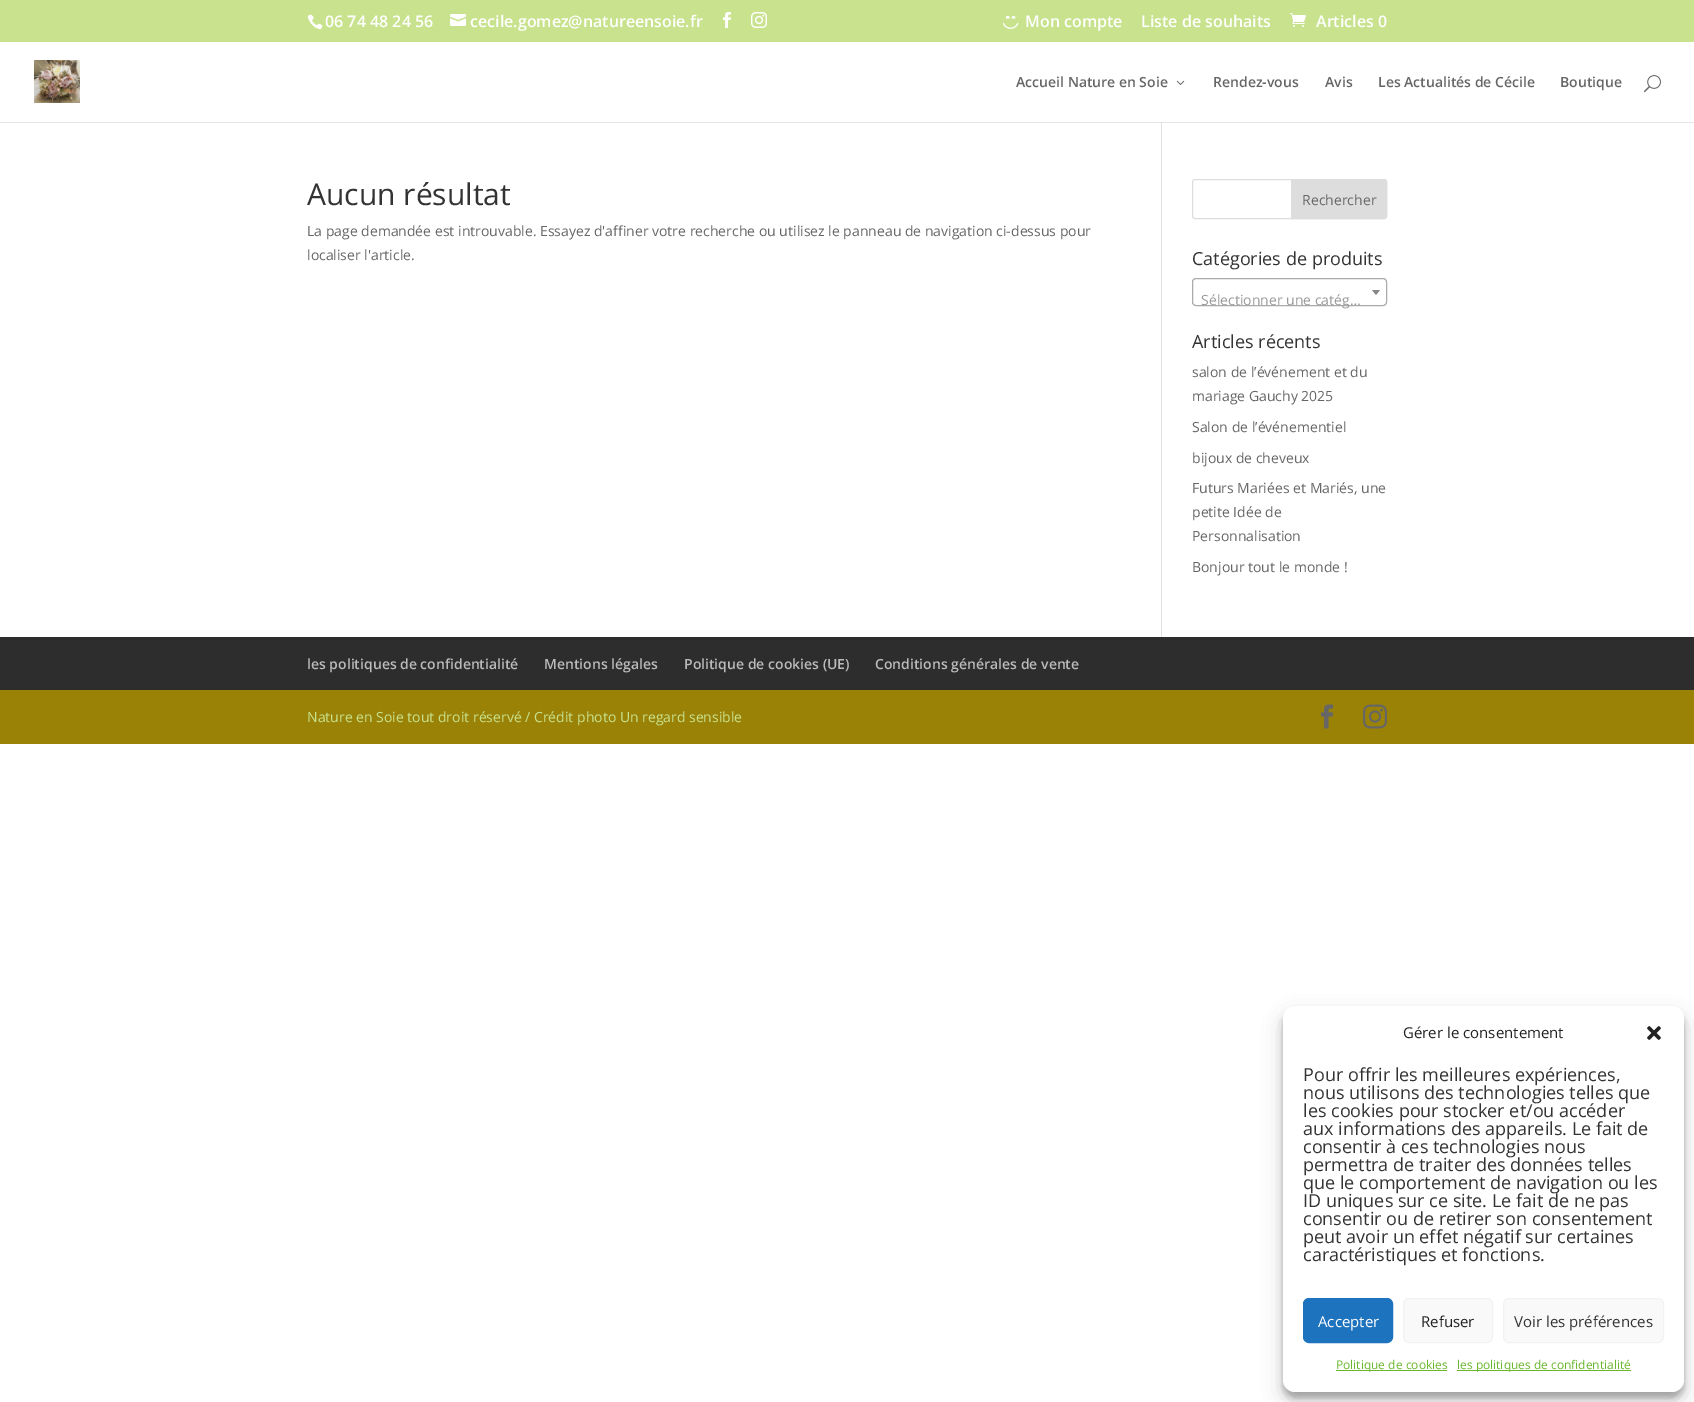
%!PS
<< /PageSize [1694 1402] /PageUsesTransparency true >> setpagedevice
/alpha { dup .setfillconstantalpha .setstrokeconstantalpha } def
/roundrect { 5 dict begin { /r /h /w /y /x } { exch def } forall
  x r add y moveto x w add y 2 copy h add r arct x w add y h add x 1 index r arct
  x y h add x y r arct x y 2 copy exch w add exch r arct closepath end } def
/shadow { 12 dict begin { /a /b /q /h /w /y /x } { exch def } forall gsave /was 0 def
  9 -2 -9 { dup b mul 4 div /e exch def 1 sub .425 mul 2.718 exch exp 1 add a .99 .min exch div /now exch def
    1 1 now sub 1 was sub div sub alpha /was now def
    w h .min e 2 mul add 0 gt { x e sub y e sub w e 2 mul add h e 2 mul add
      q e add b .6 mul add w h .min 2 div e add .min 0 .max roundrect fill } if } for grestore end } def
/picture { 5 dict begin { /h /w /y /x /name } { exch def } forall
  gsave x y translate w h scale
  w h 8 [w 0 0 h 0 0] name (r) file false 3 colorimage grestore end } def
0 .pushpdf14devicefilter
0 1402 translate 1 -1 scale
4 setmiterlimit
1 setgray
0 0 1694 1402 rectfill
0.902 setgray
0 122 1694 1 rectfill
0.784 0.886 0.557 setrgbcolor
0 0 1694 42 rectfill
(img1.rgb) 307 14 16 16 picture
/OpenSans-SemiBold [16 0 0 -16 0 0] selectfont
1 setgray
325 27 moveto (06 74 48 24 56) show
(img2.rgb) 450 14 16 12 picture
470 27 moveto (cecile.gomez@natureensoie.fr) show
(img3.rgb) 723 12 8 16 picture
(img4.rgb) 751 12 16 16 picture
(img5.rgb) 1002 15 17 14 picture
1025 27 moveto (Mon compte) show
1141 27 moveto (Liste de souhaits) show
(img6.rgb) 1290 13 16 14 picture
1316 27 moveto (Articles 0) show
0.886 setgray
1161 121 1 516 rectfill
1 setgray
1161 121 1 1 rectfill
(img7.rgb) 34 60 46 43 picture
/OpenSans-SemiBold [14 0 0 -14 0 0] selectfont
0.4 setgray
1016 87 moveto (Accueil Nature en Soie) show
(img8.rgb) 1176 80 9 5 picture
1213 87 moveto (Rendez-vous) show
1325 87 moveto (Avis) show
1378 87 moveto (Les Actualités de Cécile) show
1560 87 moveto (Boutique) show
(img9.rgb) 1644 75 17 18 picture
0.796 setgray
1161 122 1 1 rectfill
/OpenSans-Regular [30 0 0 -30 0 0] selectfont
0.2 setgray
307 205 moveto (Aucun résultat) show
/OpenSans-Regular [14 0 0 -14 0 0] selectfont
0.4 setgray
307 236 moveto (La page demandée est introuvable. Essayez d'affiner votre recherche ou utilisez le panneau de navigation ci-dessus pour) show
307 260 moveto (localiser l'article.) show
0.867 setgray
1192.5 179.5 194 39 2.5 roundrect stroke
newpath 1291.5 179.5 moveto 1384 179.5 lineto 1385.5 179.5 1386.5 180.5 1386.5 182 curveto 1386.5 216 lineto 1386.5 217.5 1385.5 218.5 1384 218.5 curveto 1291.5 218.5 lineto closepath gsave fill grestore
stroke
0.4 setgray
1302 205 moveto (Rechercher) show
/OpenSans-Regular [18 0 0 -18 0 0] selectfont
0.2 setgray
1192 265 moveto (Catégories de produits) show
0.667 setgray
1192.5 278.5 194 27 3.5 roundrect stroke
0.533 setgray
newpath 1372 290 moveto 1380 290 lineto 1376 295 lineto closepath fill
/OpenSans-Regular [14 0 0 -14 0 0] selectfont
0.6 setgray
1201 305 moveto (Sélectionner une catég…) show
/OpenSans-Regular [18 0 0 -18 0 0] selectfont
0.2 setgray
1192 348 moveto (Articles récents) show
/OpenSans-Regular [14 0 0 -14 0 0] selectfont
0.4 setgray
1192 377 moveto (salon de l’événement et du) show
1192 401 moveto (mariage Gauchy 2025) show
1192 432 moveto (Salon de l’événementiel) show
1192 463 moveto (bijoux de cheveux) show
1192 493 moveto (Futurs Mariées et Mariés, une) show
1192 517 moveto (petite Idée de) show
1192 541 moveto (Personnalisation) show
1192 572 moveto (Bonjour tout le monde !) show
0.176 setgray
0 637 1694 53 rectfill
/OpenSans-SemiBold [14 0 0 -14 0 0] selectfont
0.733 setgray
307 669 moveto (les politiques de confidentialité) show
544 669 moveto (Mentions légales) show
684 669 moveto (Politique de cookies \(UE\)) show
875 669 moveto (Conditions générales de vente) show
0.604 0.51 0.027 setrgbcolor
0 690 1694 54 rectfill
/OpenSans-Regular [14 0 0 -14 0 0] selectfont
0.784 0.886 0.557 setrgbcolor
307 722 moveto (Nature en Soie tout droit réservé / Crédit photo Un regard sensible) show
(img10.rgb) 1321 704 12 25 picture
(img11.rgb) 1363 704 24 25 picture
0 setgray
1283 1012 401 386 12 3 0.23 shadow
1283 1016 401 386 12 10 0.19 shadow
1 setgray
1283 1006 401 386 12 roundrect fill
/OpenSans-Regular [15 0 0 -15 0 0] selectfont
0.133 setgray
1403 1038 moveto (Gérer le consentement) show
(img12.rgb) 1647 1026 14 14 picture
/OpenSans-Regular [18 0 0 -18 0 0] selectfont
0.2 setgray
1303 1081 moveto (Pour offrir les meilleures expériences,) show
1303 1099 moveto (nous utilisons des technologies telles que) show
1303 1117 moveto (les cookies pour stocker et/ou accéder) show
1303 1135 moveto (aux informations des appareils. Le fait de) show
1303 1153 moveto (consentir à ces technologies nous) show
1303 1171 moveto (permettra de traiter des données telles) show
1303 1189 moveto (que le comportement de navigation ou les) show
1303 1207 moveto (ID uniques sur ce site. Le fait de ne pas) show
1303 1225 moveto (consentir ou de retirer son consentement) show
1303 1243 moveto (peut avoir un effet négatif sur certaines) show
1303 1261 moveto (caractéristiques et fonctions.) show
0.118 0.451 0.745 setrgbcolor
1303.5 1298.5 89 44 5.5 roundrect gsave fill grestore
stroke
/OpenSans-Regular [15 0 0 -15 0 0] selectfont
1 setgray
1318 1327 moveto (Accepter) show
0.976 setgray
1403.5 1298.5 89 44 5.5 roundrect gsave fill grestore
0.949 setgray
stroke
0.133 setgray
1421 1327 moveto (Refuser) show
0.976 setgray
1503.5 1298.5 160 44 5.5 roundrect gsave fill grestore
0.949 setgray
stroke
0.2 setgray
1514 1327 moveto (Voir les préférences) show
0.412 0.718 0.173 setrgbcolor
1336 1370 111 1 rectfill
/OpenSans-Regular [12 0 0 -12 0 0] selectfont
1336 1369 moveto (Politique de cookies) show
1457 1370 174 1 rectfill
1457 1369 moveto (les politiques de confidentialité) show
.poppdf14devicefilter showpage
